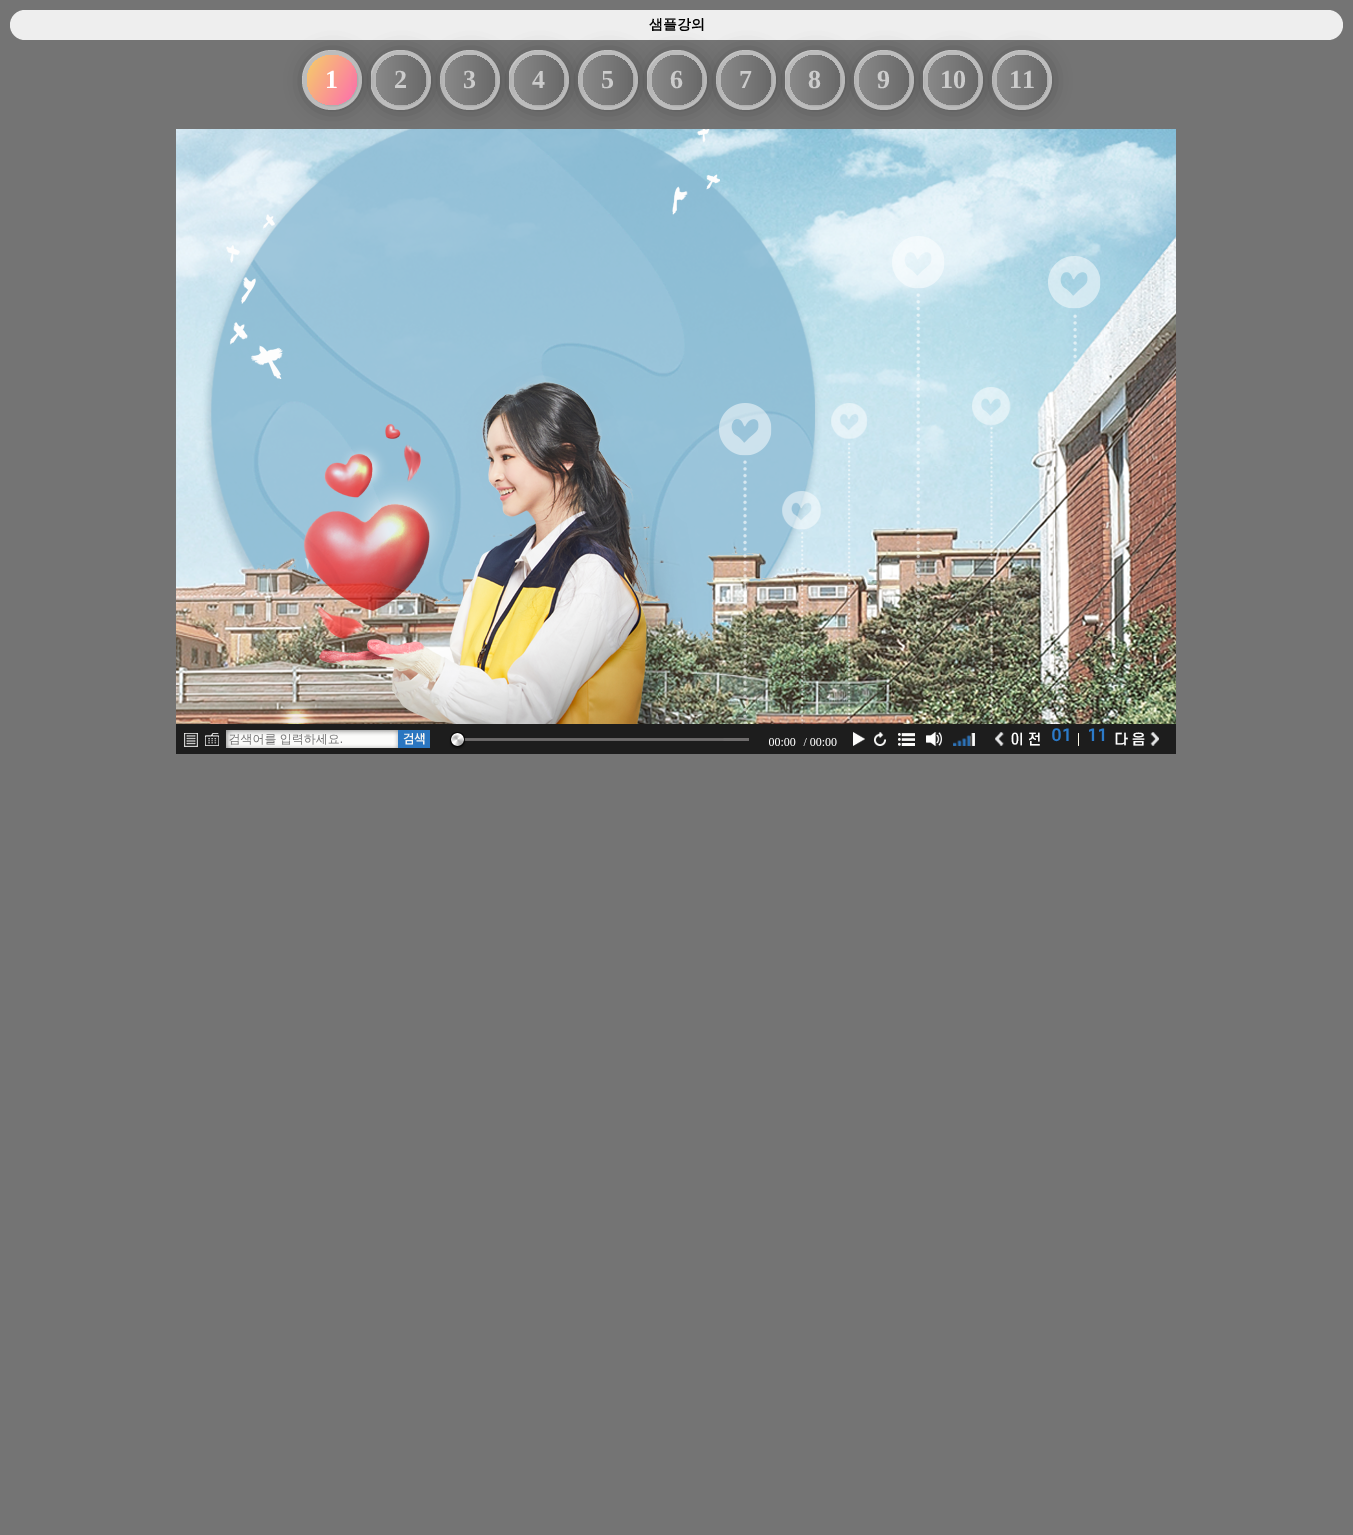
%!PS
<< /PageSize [1353 1535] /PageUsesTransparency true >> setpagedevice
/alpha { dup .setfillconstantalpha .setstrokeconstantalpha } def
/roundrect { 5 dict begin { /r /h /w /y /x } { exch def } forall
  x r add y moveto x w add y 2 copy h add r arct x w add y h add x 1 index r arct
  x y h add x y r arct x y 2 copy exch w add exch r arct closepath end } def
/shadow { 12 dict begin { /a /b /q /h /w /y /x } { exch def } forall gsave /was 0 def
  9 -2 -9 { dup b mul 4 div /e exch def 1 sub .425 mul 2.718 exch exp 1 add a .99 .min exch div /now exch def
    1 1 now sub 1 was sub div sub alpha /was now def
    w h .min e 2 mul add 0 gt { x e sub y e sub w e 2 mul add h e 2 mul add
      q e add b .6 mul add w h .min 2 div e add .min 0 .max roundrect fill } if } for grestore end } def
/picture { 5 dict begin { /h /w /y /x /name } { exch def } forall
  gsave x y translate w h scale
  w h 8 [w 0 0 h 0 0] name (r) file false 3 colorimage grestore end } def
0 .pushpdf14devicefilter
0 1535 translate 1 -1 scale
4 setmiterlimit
0.455 setgray
0 0 1353 1535 rectfill
0.933 setgray
10 10 1333 30 15 roundrect fill
/WenQuanYiZenHei-Bold [14 0 0 -14 0 0] selectfont
0 setgray
649 29 moveto (샘플강의) show
gsave
302 50 30 60 rectclip
0.867 setgray
newpath 332 110 moveto 315 110 302 97 302 80 curveto 302 63 315 50 332 50 curveto 348 50 362 63 362 80 curveto 362 97 348 110 332 110 curveto closepath fill
grestore
0.867 setgray
newpath 332 50 moveto 348.5 50 362 63.5 362 80 curveto 362 96.5 348.5 110 332 110 curveto closepath fill
gsave
371 50 30 60 rectclip
newpath 400 110 moveto 384 110 370 97 370 80 curveto 370 63 384 50 400 50 curveto 417 50 430 63 430 80 curveto 430 97 417 110 400 110 curveto closepath fill
grestore
(img1.rgb) 176 129 1000 625 picture
0 setgray
305 53 56 56 28 10 0.3 shadow
gsave newpath 332 80 25 0 360 arc closepath clip newpath
<< /ShadingType 2 /ColorSpace /DeviceRGB /Coords [302 63 362 97] /Extend [true true] /Function << /FunctionType 2 /Domain [0 1] /C0 [0.961 0.816 0.408] /C1 [0.996 0.42 0.686] /N 1 >> >> shfill grestore
/LiberationSerif-Bold [26 0 0 -26 0 0] selectfont
1 setgray
325 88 moveto (1) show
0.867 setgray
newpath 401 50 moveto 417.5 50 431 63.5 431 80 curveto 431 96.5 417.5 110 401 110 curveto closepath fill
gsave
440 50 30 60 rectclip
newpath 470 110 moveto 453 110 440 97 440 80 curveto 440 63 453 50 470 50 curveto 486 50 500 63 500 80 curveto 500 97 486 110 470 110 curveto closepath fill
grestore
0 setgray
374 53 56 56 28 10 0.3 shadow
gsave newpath 401 80 25 0 360 arc closepath clip newpath
<< /ShadingType 2 /ColorSpace /DeviceRGB /Coords [376 80 426 80] /Extend [true true] /Function << /FunctionType 2 /Domain [0 1] /C0 [0.537 0.537 0.537] /C1 [0.412 0.412 0.412] /N 1 >> >> shfill grestore
0.8 setgray
394 88 moveto (2) show
0.867 setgray
newpath 470 50 moveto 486.5 50 500 63.5 500 80 curveto 500 96.5 486.5 110 470 110 curveto closepath fill
gsave
509 50 30 60 rectclip
newpath 538 110 moveto 522 110 508 97 508 80 curveto 508 63 522 50 538 50 curveto 555 50 568 63 568 80 curveto 568 97 555 110 538 110 curveto closepath fill
grestore
0 setgray
443 53 56 56 28 10 0.3 shadow
gsave newpath 470 80 25 0 360 arc closepath clip newpath
<< /ShadingType 2 /ColorSpace /DeviceRGB /Coords [445 80 495 80] /Extend [true true] /Function << /FunctionType 2 /Domain [0 1] /C0 [0.537 0.537 0.537] /C1 [0.412 0.412 0.412] /N 1 >> >> shfill grestore
0.8 setgray
463 88 moveto (3) show
0.867 setgray
newpath 539 50 moveto 555.5 50 569 63.5 569 80 curveto 569 96.5 555.5 110 539 110 curveto closepath fill
gsave
578 50 30 60 rectclip
newpath 608 110 moveto 591 110 578 97 578 80 curveto 578 63 591 50 608 50 curveto 624 50 638 63 638 80 curveto 638 97 624 110 608 110 curveto closepath fill
grestore
0 setgray
512 53 56 56 28 10 0.3 shadow
gsave newpath 539 80 25 0 360 arc closepath clip newpath
<< /ShadingType 2 /ColorSpace /DeviceRGB /Coords [514 80 564 80] /Extend [true true] /Function << /FunctionType 2 /Domain [0 1] /C0 [0.537 0.537 0.537] /C1 [0.412 0.412 0.412] /N 1 >> >> shfill grestore
0.8 setgray
532 88 moveto (4) show
0.867 setgray
newpath 608 50 moveto 624.5 50 638 63.5 638 80 curveto 638 96.5 624.5 110 608 110 curveto closepath fill
gsave
647 50 30 60 rectclip
newpath 676 110 moveto 660 110 646 97 646 80 curveto 646 63 660 50 676 50 curveto 693 50 706 63 706 80 curveto 706 97 693 110 676 110 curveto closepath fill
grestore
0 setgray
581 53 56 56 28 10 0.3 shadow
gsave newpath 608 80 25 0 360 arc closepath clip newpath
<< /ShadingType 2 /ColorSpace /DeviceRGB /Coords [583 80 633 80] /Extend [true true] /Function << /FunctionType 2 /Domain [0 1] /C0 [0.537 0.537 0.537] /C1 [0.412 0.412 0.412] /N 1 >> >> shfill grestore
0.8 setgray
601 88 moveto (5) show
0.867 setgray
newpath 677 50 moveto 693.5 50 707 63.5 707 80 curveto 707 96.5 693.5 110 677 110 curveto closepath fill
gsave
716 50 30 60 rectclip
newpath 746 110 moveto 729 110 716 97 716 80 curveto 716 63 729 50 746 50 curveto 762 50 776 63 776 80 curveto 776 97 762 110 746 110 curveto closepath fill
grestore
0 setgray
650 53 56 56 28 10 0.3 shadow
gsave newpath 677 80 25 0 360 arc closepath clip newpath
<< /ShadingType 2 /ColorSpace /DeviceRGB /Coords [652 80 702 80] /Extend [true true] /Function << /FunctionType 2 /Domain [0 1] /C0 [0.537 0.537 0.537] /C1 [0.412 0.412 0.412] /N 1 >> >> shfill grestore
0.8 setgray
670 88 moveto (6) show
0.867 setgray
newpath 746 50 moveto 762.5 50 776 63.5 776 80 curveto 776 96.5 762.5 110 746 110 curveto closepath fill
gsave
785 50 30 60 rectclip
newpath 814 110 moveto 798 110 784 97 784 80 curveto 784 63 798 50 814 50 curveto 831 50 844 63 844 80 curveto 844 97 831 110 814 110 curveto closepath fill
grestore
0 setgray
719 53 56 56 28 10 0.3 shadow
gsave newpath 746 80 25 0 360 arc closepath clip newpath
<< /ShadingType 2 /ColorSpace /DeviceRGB /Coords [721 80 771 80] /Extend [true true] /Function << /FunctionType 2 /Domain [0 1] /C0 [0.537 0.537 0.537] /C1 [0.412 0.412 0.412] /N 1 >> >> shfill grestore
0.8 setgray
739 88 moveto (7) show
0.867 setgray
newpath 815 50 moveto 831.5 50 845 63.5 845 80 curveto 845 96.5 831.5 110 815 110 curveto closepath fill
gsave
854 50 30 60 rectclip
newpath 884 110 moveto 867 110 854 97 854 80 curveto 854 63 867 50 884 50 curveto 900 50 914 63 914 80 curveto 914 97 900 110 884 110 curveto closepath fill
grestore
0 setgray
788 53 56 56 28 10 0.3 shadow
gsave newpath 815 80 25 0 360 arc closepath clip newpath
<< /ShadingType 2 /ColorSpace /DeviceRGB /Coords [790 80 840 80] /Extend [true true] /Function << /FunctionType 2 /Domain [0 1] /C0 [0.537 0.537 0.537] /C1 [0.412 0.412 0.412] /N 1 >> >> shfill grestore
0.8 setgray
808 88 moveto (8) show
0.867 setgray
newpath 884 50 moveto 900.5 50 914 63.5 914 80 curveto 914 96.5 900.5 110 884 110 curveto closepath fill
gsave
923 50 30 60 rectclip
newpath 952 110 moveto 936 110 922 97 922 80 curveto 922 63 936 50 952 50 curveto 969 50 982 63 982 80 curveto 982 97 969 110 952 110 curveto closepath fill
grestore
0 setgray
857 53 56 56 28 10 0.3 shadow
gsave newpath 884 80 25 0 360 arc closepath clip newpath
<< /ShadingType 2 /ColorSpace /DeviceRGB /Coords [859 80 909 80] /Extend [true true] /Function << /FunctionType 2 /Domain [0 1] /C0 [0.537 0.537 0.537] /C1 [0.412 0.412 0.412] /N 1 >> >> shfill grestore
0.8 setgray
877 88 moveto (9) show
0.867 setgray
newpath 953 50 moveto 969.5 50 983 63.5 983 80 curveto 983 96.5 969.5 110 953 110 curveto closepath fill
gsave
992 50 30 60 rectclip
newpath 1022 110 moveto 1005 110 992 97 992 80 curveto 992 63 1005 50 1022 50 curveto 1038 50 1052 63 1052 80 curveto 1052 97 1038 110 1022 110 curveto closepath fill
grestore
0 setgray
926 53 56 56 28 10 0.3 shadow
gsave newpath 953 80 25 0 360 arc closepath clip newpath
<< /ShadingType 2 /ColorSpace /DeviceRGB /Coords [928 80 978 80] /Extend [true true] /Function << /FunctionType 2 /Domain [0 1] /C0 [0.537 0.537 0.537] /C1 [0.412 0.412 0.412] /N 1 >> >> shfill grestore
0.8 setgray
940 88 moveto (10) show
0.867 setgray
newpath 1022 50 moveto 1038.5 50 1052 63.5 1052 80 curveto 1052 96.5 1038.5 110 1022 110 curveto closepath fill
0 setgray
995 53 56 56 28 10 0.3 shadow
gsave newpath 1022 80 25 0 360 arc closepath clip newpath
<< /ShadingType 2 /ColorSpace /DeviceRGB /Coords [997 80 1047 80] /Extend [true true] /Function << /FunctionType 2 /Domain [0 1] /C0 [0.537 0.537 0.537] /C1 [0.412 0.412 0.412] /N 1 >> >> shfill grestore
0.8 setgray
1009 88 moveto (11) show
.poppdf14devicefilter showpage
